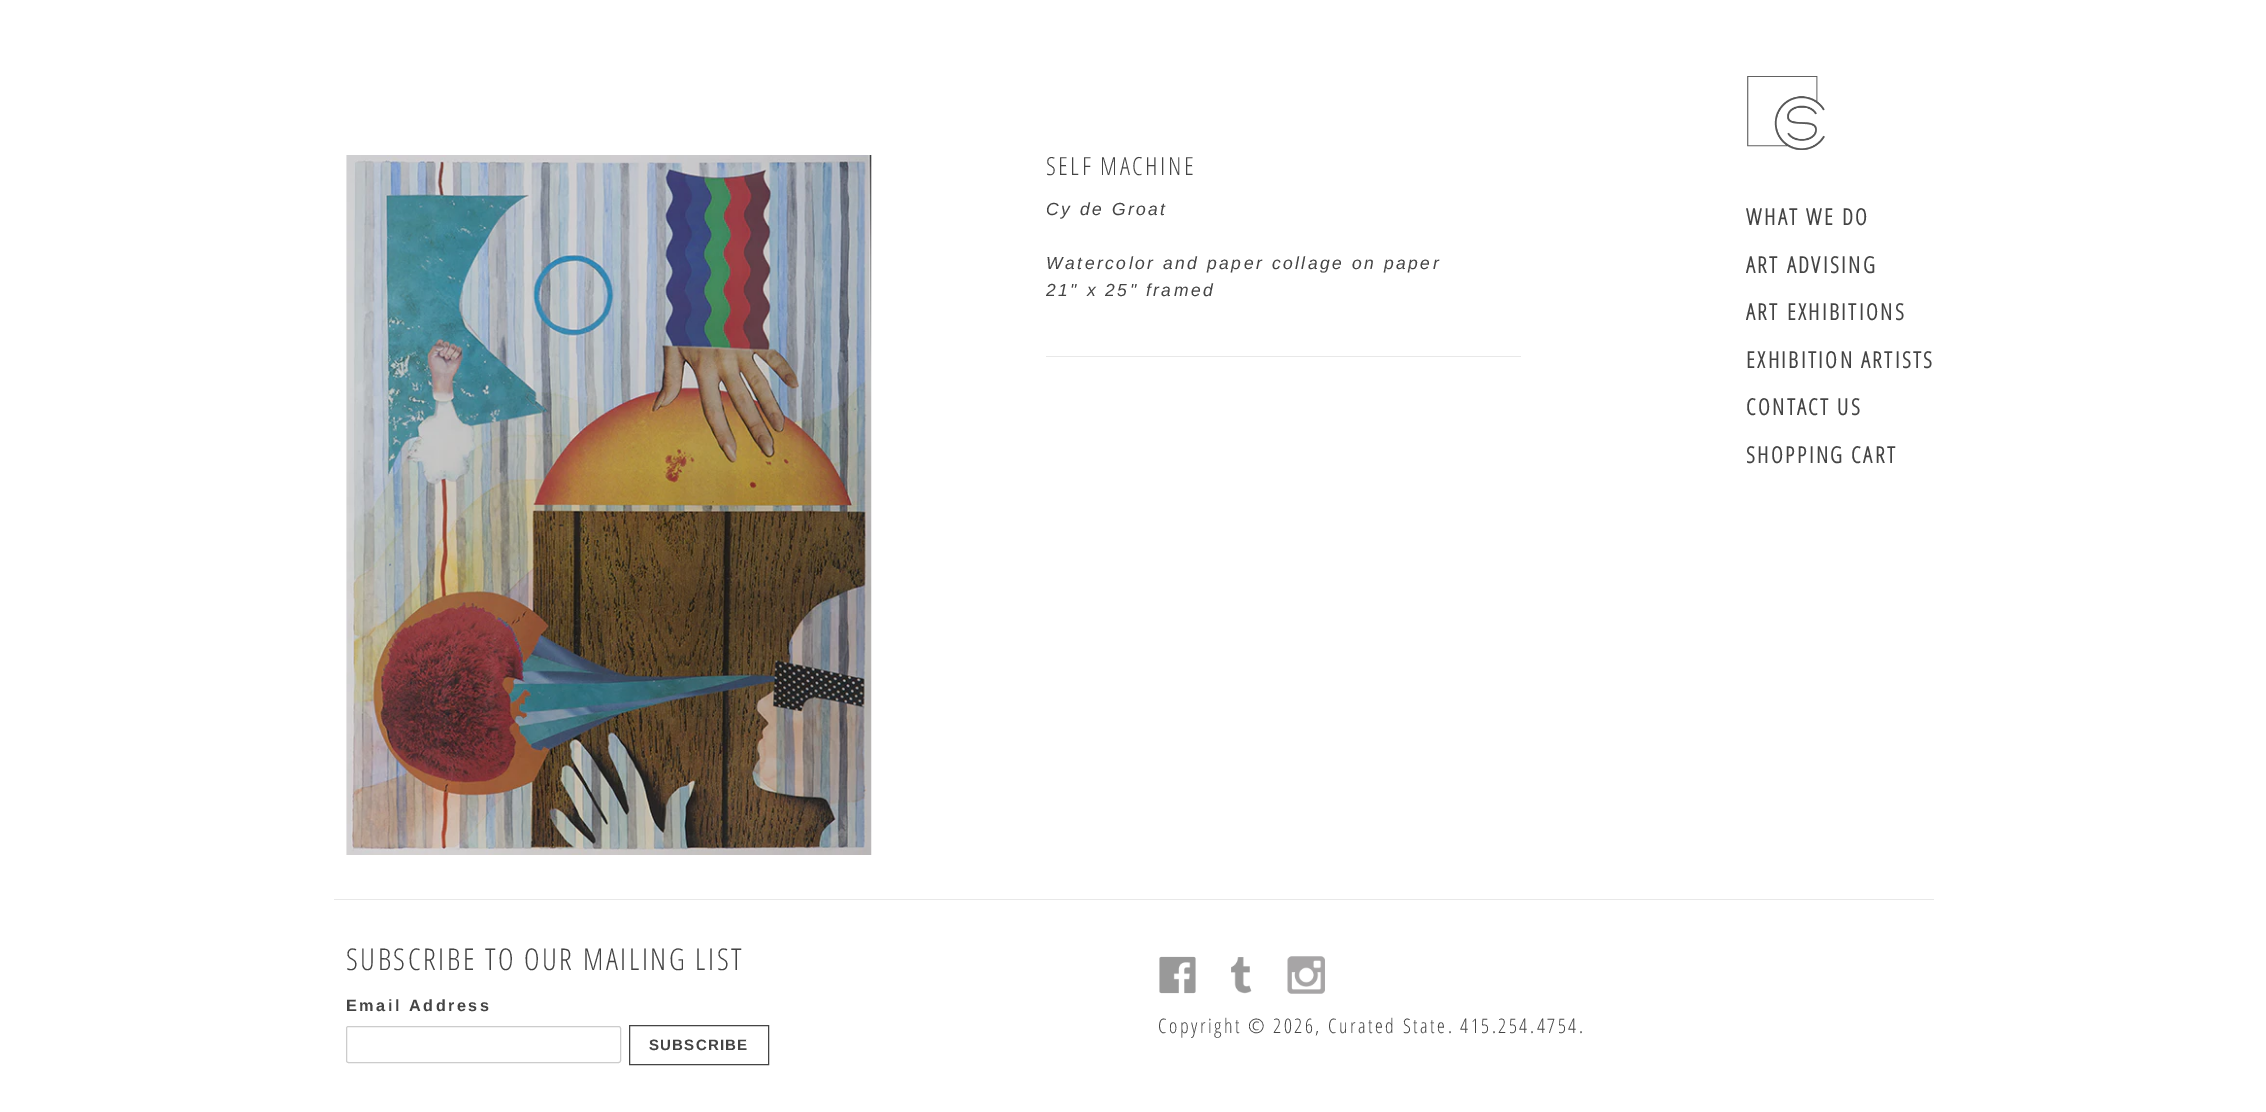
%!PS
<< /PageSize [2266 1112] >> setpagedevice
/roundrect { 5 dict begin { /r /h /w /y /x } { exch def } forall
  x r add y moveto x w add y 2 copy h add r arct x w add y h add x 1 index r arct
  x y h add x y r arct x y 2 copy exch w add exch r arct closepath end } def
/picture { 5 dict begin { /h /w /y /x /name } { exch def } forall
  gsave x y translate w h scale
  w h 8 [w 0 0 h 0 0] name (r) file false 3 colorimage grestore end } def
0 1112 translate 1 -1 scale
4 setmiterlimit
1 setgray
0 0 2266 1112 rectfill
(img1.rgb) 1747 76 78 74 picture
(img2.rgb) 346 155 526 700 picture
/OpenSansCondensed-Light [25 0 0 -25 0 0] selectfont
0.267 setgray
1046 175 moveto 2.5 0 (SELF MACHINE) ashow
/LiberationSans-Italic [17.5 0 0 -17.5 0 0] selectfont
1046 215 moveto 2.5 0 (Cy de Groat) ashow
1046 269 moveto 2.5 0 (Watercolor and paper collage on paper) ashow
1046 296 moveto 2.5 0 (21" x 25" framed) ashow
0.91 setgray
1046 356 475 1 rectfill
/OpenSansCondensed-Bold [22.5 0 0 -22.5 0 0] selectfont
0.267 setgray
1746 225 moveto 2.5 0 (WHAT WE DO) ashow
1746 273 moveto 2.5 0 (ART ADVISING) ashow
1746 320 moveto 2.5 0 (ART EXHIBITIONS) ashow
1746 368 moveto 2.5 0 (EXHIBITION ARTISTS) ashow
1746 415 moveto 2.5 0 (CONTACT US) ashow
1746 463 moveto 2.5 0 (SHOPPING CART) ashow
0.91 setgray
334 899 1600 1 rectfill
/OpenSansCondensed-Light [30 0 0 -30 0 0] selectfont
0.267 setgray
346 970 moveto 2.5 0 (SUBSCRIBE TO OUR MAILING LIST) ashow
/LiberationSans-Bold [16.25 0 0 -16.25 0 0] selectfont
346 1011 moveto 2.5 0 (Email Address) ashow
0.8 setgray
346.5 1026.5 274 36 2 roundrect stroke
0.267 setgray
629.5 1025.5 139 39 rectstroke
/LiberationSans-Bold [15 0 0 -15 0 0] selectfont
649 1050 moveto 1.25 0 (SUBSCRIBE) ashow
(img3.rgb) 1159 956 37 38 picture
(img4.rgb) 1231 957 21 37 picture
(img5.rgb) 1287 956 38 38 picture
/OpenSansCondensed-Light [20 0 0 -20 0 0] selectfont
1158 1033 moveto 2.5 0 (Copyright © 2026, Curated State. 415.254.4754.) ashow
showpage
